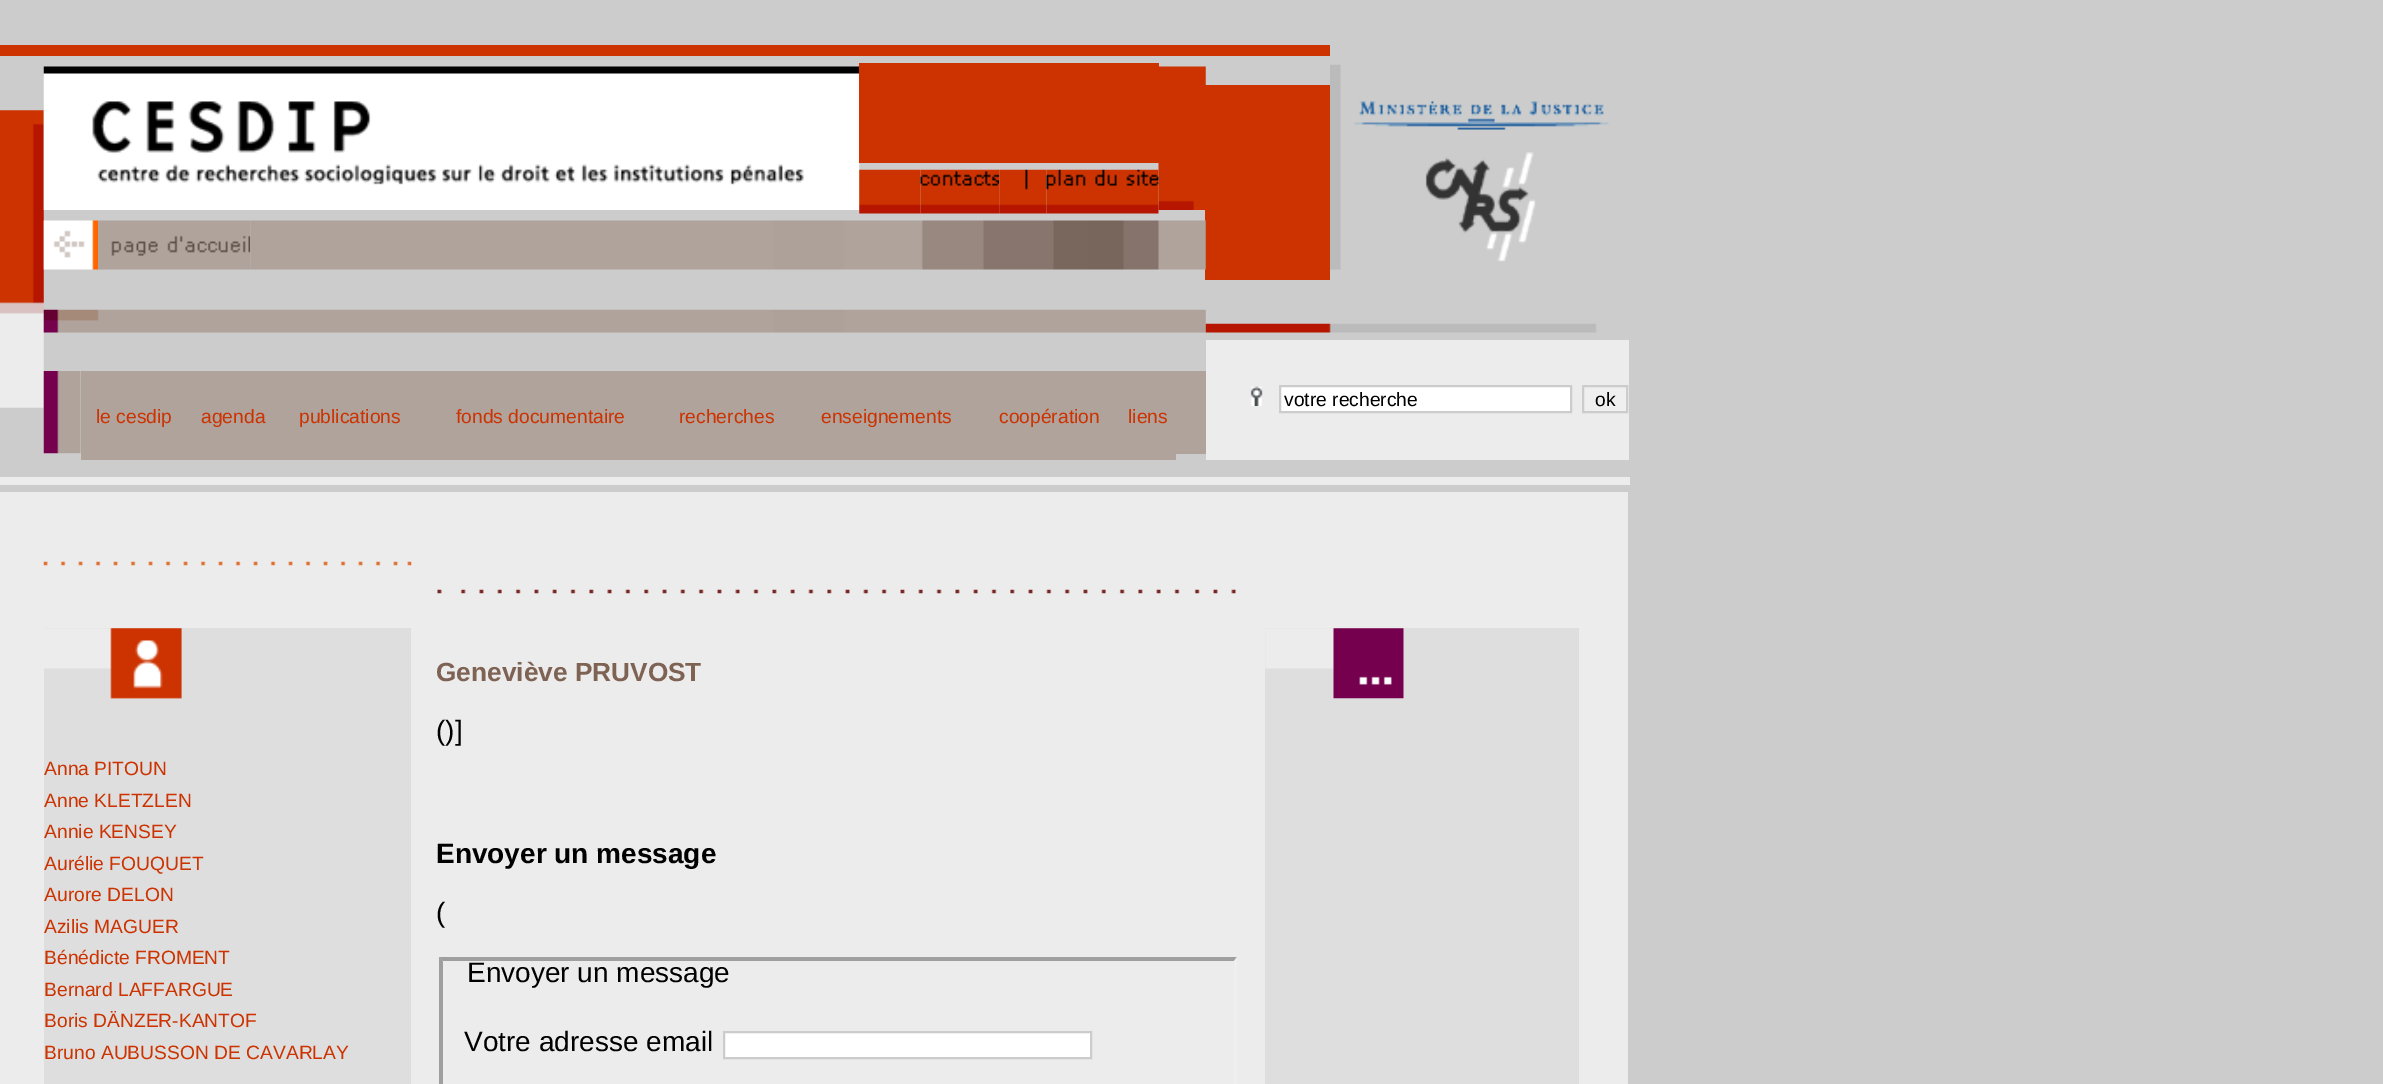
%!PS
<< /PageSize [2383 1084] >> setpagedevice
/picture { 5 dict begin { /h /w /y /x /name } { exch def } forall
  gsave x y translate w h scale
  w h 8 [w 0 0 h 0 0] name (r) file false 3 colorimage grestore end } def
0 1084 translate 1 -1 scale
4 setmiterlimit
0.8 setgray
0 0 2383 1084 rectfill
0.8 0.2 0 setrgbcolor
0 45 1330 11 rectfill
(img1.rgb) 1330 64 279 206 picture
(img2.rgb) 0 110 44 298 picture
(img3.rgb) 43 66 817 144 picture
859 63 300 100 rectfill
(img4.rgb) 1158 66 48 144 picture
1205 85 125 195 rectfill
(img5.rgb) 859 169 62 45 picture
(img6.rgb) 920 169 80 45 picture
(img7.rgb) 999 169 48 45 picture
(img8.rgb) 1046 169 113 45 picture
(img9.rgb) 43 220 55 50 picture
(img10.rgb) 98 220 153 50 picture
(img11.rgb) 250 220 956 50 picture
(img12.rgb) 43 309 1163 24 picture
(img13.rgb) 1205 323 392 10 picture
0.925 setgray
1206 340 423 120 rectfill
(img14.rgb) 1250 386 13 20 picture
1 setgray
newpath 1280 386 moveto 1571 386 lineto 1571 412 lineto 1280 412 lineto closepath gsave fill grestore
0.8 setgray
2 setlinewidth
stroke
/LiberationSans-Regular [19.25 0 0 -19.25 0 0] selectfont
0 setgray
1284 406 moveto (votre recherche) show
0.937 setgray
newpath 1583 386 moveto 1627 386 lineto 1627 412 lineto 1583 412 lineto closepath gsave fill grestore
0.8 setgray
stroke
0 setgray
1595 406 moveto (ok) show
(img15.rgb) 43 371 38 83 picture
0.69 0.639 0.612 setrgbcolor
81 371 1095 89 rectfill
0.8 0.2 0 setrgbcolor
96 423 moveto (le cesdip) show
201 423 moveto (agenda) show
299 423 moveto (publications) show
456 423 moveto (fonds documentaire) show
679 423 moveto (recherches) show
821 423 moveto (enseignements) show
999 423 moveto (coopération) show
1128 423 moveto (liens) show
0.69 0.639 0.612 setrgbcolor
1176 371 30 83 rectfill
0.925 setgray
0 477 1630 8 rectfill
0 492 1628 592 rectfill
(img16.rgb) 43 561 369 5 picture
(img17.rgb) 437 589 799 5 picture
0.871 setgray
44 628 367 456 rectfill
(img18.rgb) 44 628 138 71 picture
0.8 0.2 0 setrgbcolor
44 775 moveto (Anna PITOUN) show
44 807 moveto (Anne KLETZLEN) show
44 838 moveto (Annie KENSEY) show
44 870 moveto (Aurélie FOUQUET) show
44 901 moveto (Aurore DELON) show
44 933 moveto (Azilis MAGUER) show
44 964 moveto (Bénédicte FROMENT) show
44 996 moveto (Bernard LAFFARGUE) show
44 1027 moveto (Boris DÄNZER-KANTOF) show
44 1059 moveto (Bruno AUBUSSON DE CAVARLAY) show
/LiberationSans-Bold [26.25 0 0 -26.25 0 0] selectfont
0.494 0.388 0.329 setrgbcolor
436 681 moveto (Geneviève PRUVOST) show
/LiberationSans-Regular [28 0 0 -28 0 0] selectfont
0 setgray
436 740 moveto (\(\)]) show
/LiberationSans-Bold [28 0 0 -28 0 0] selectfont
436 863 moveto (Envoyer un message) show
/LiberationSans-Regular [28 0 0 -28 0 0] selectfont
436 922 moveto (\() show
0.624 setgray
newpath 439 957 moveto 1237 957 lineto 1234 961 lineto 443 961 lineto closepath fill
0.937 setgray
newpath 1237 957 moveto 1237 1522 lineto 1234 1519 lineto 1234 961 lineto closepath fill
0.624 setgray
newpath 439 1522 moveto 439 957 lineto 443 961 lineto 443 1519 lineto closepath fill
0 setgray
467 982 moveto (Envoyer un message) show
464 1051 moveto (Votre adresse email) show
1 setgray
newpath 724 1032 moveto 1091 1032 lineto 1091 1058 lineto 724 1058 lineto closepath gsave fill grestore
0.8 setgray
stroke
0.871 setgray
1265 628 314 456 rectfill
(img19.rgb) 1265 628 139 71 picture
showpage
